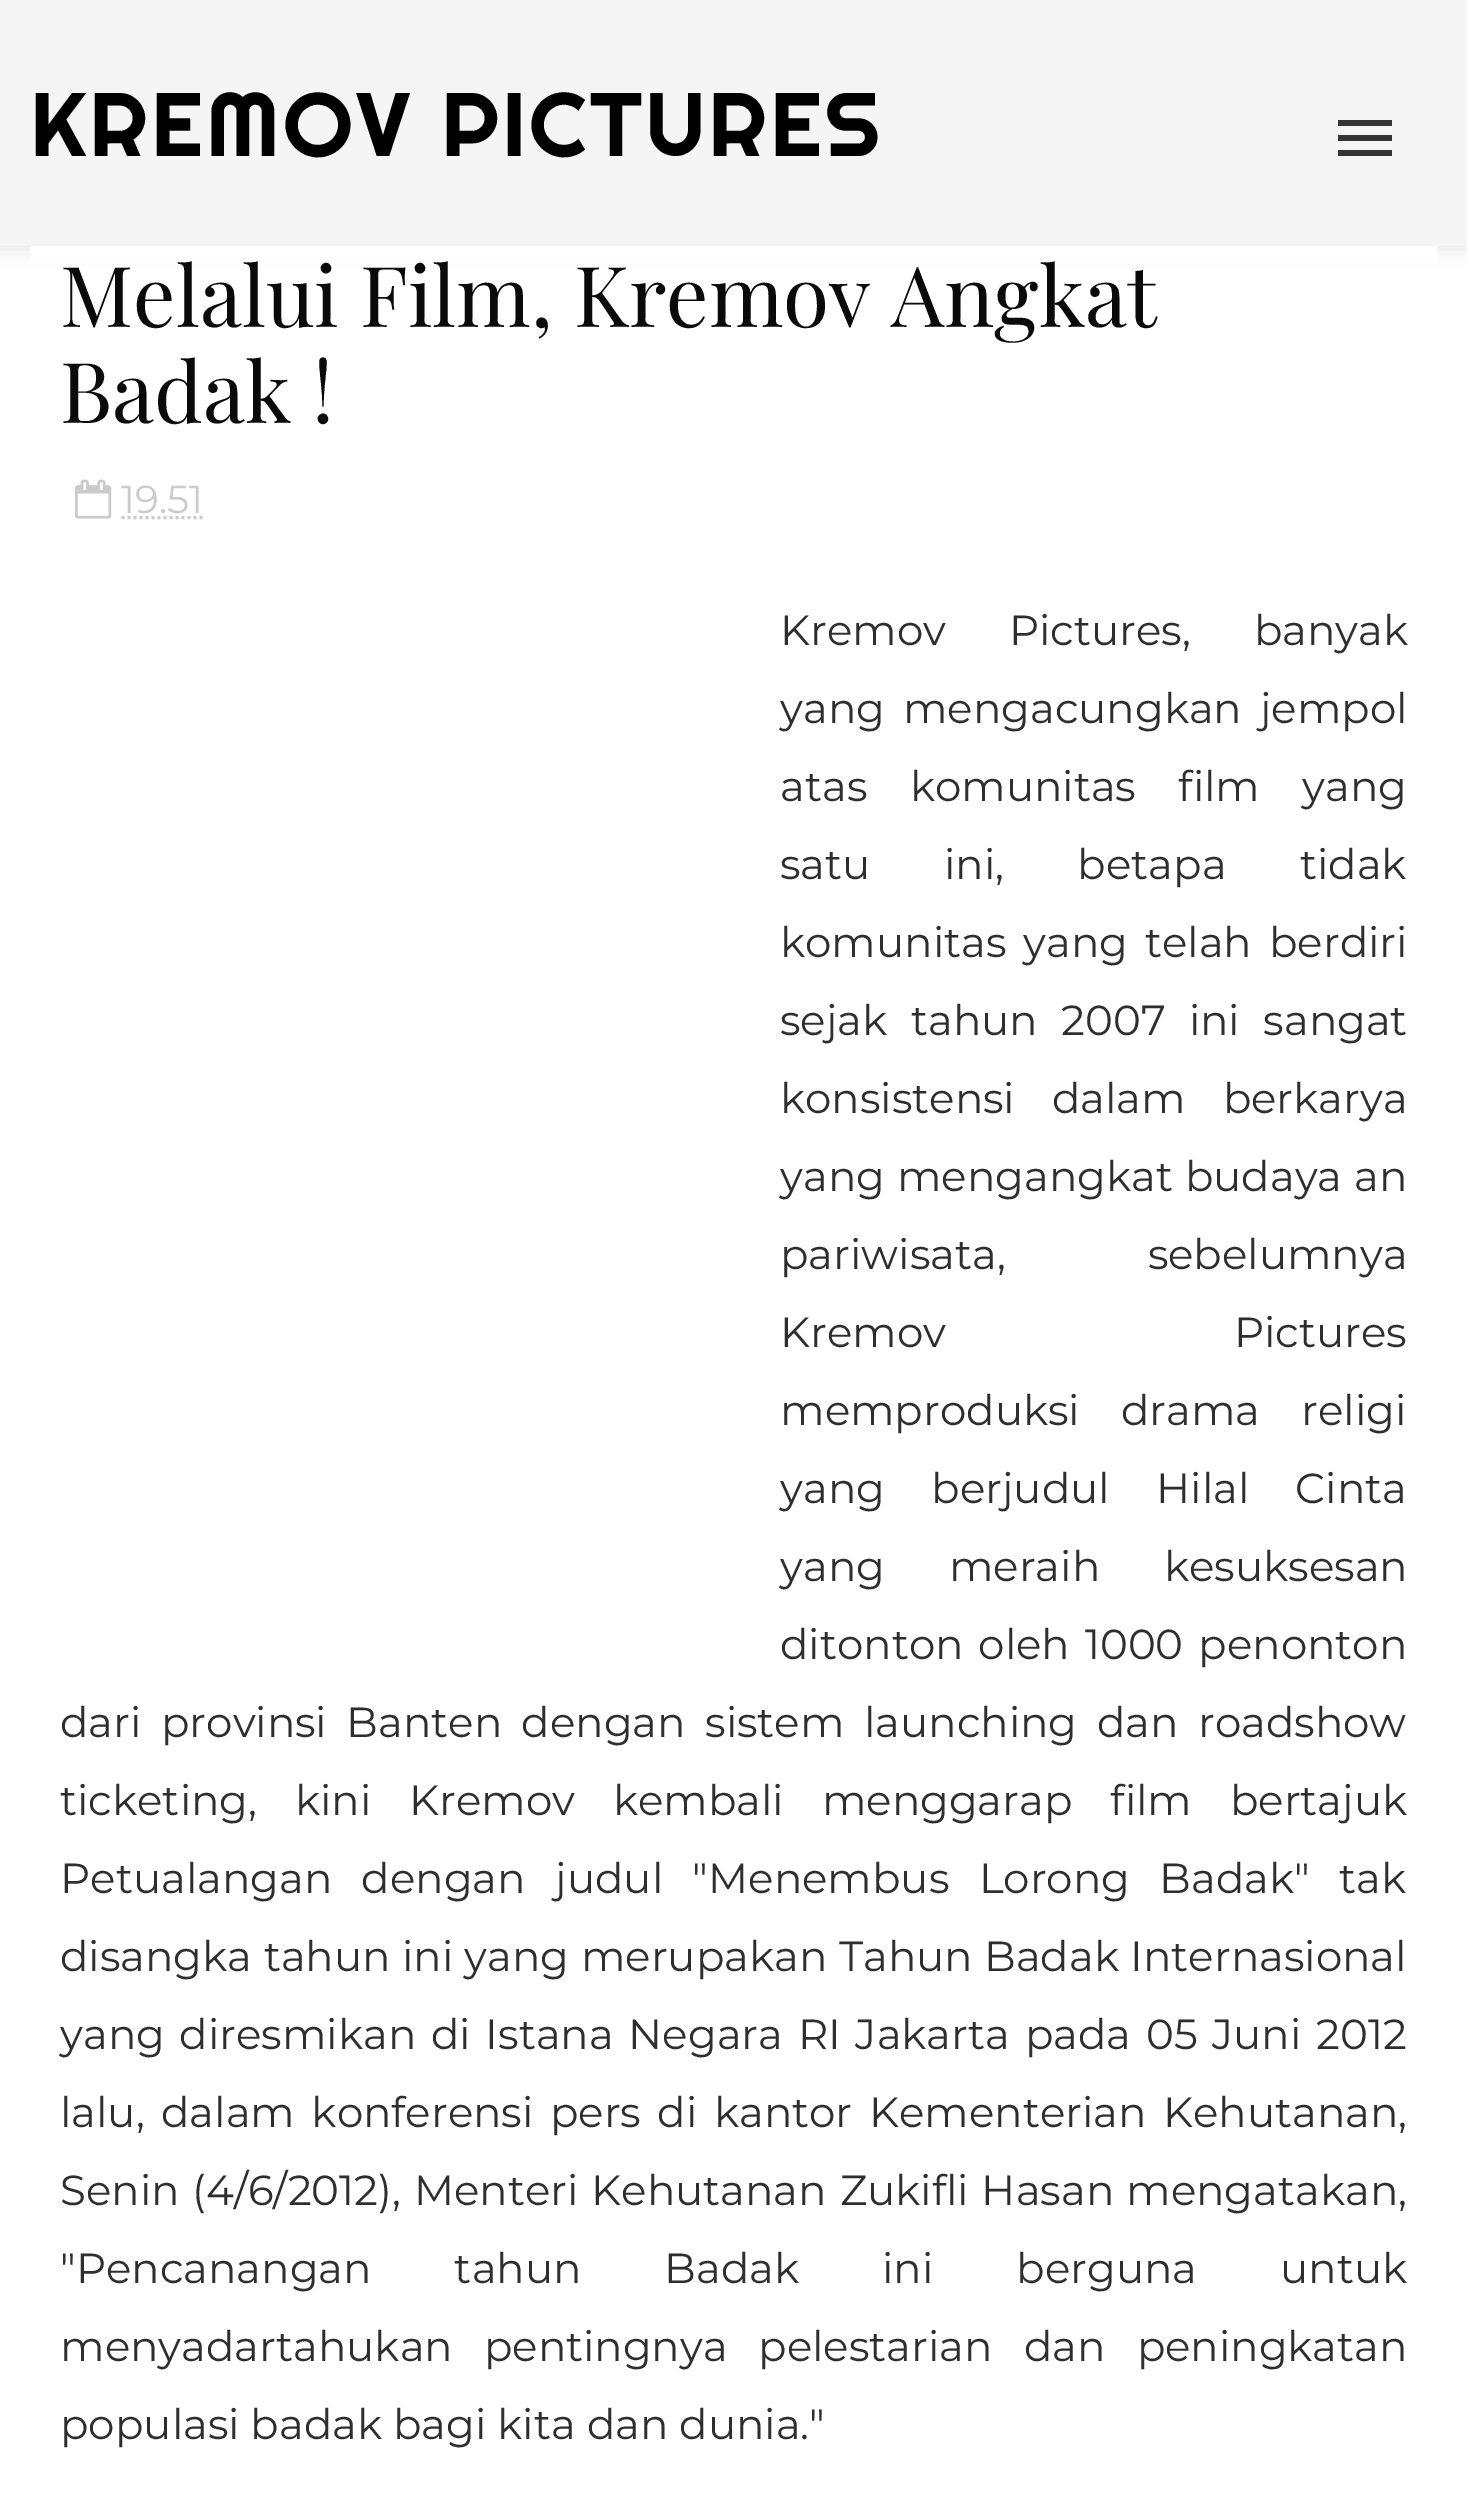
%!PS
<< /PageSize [1467 2495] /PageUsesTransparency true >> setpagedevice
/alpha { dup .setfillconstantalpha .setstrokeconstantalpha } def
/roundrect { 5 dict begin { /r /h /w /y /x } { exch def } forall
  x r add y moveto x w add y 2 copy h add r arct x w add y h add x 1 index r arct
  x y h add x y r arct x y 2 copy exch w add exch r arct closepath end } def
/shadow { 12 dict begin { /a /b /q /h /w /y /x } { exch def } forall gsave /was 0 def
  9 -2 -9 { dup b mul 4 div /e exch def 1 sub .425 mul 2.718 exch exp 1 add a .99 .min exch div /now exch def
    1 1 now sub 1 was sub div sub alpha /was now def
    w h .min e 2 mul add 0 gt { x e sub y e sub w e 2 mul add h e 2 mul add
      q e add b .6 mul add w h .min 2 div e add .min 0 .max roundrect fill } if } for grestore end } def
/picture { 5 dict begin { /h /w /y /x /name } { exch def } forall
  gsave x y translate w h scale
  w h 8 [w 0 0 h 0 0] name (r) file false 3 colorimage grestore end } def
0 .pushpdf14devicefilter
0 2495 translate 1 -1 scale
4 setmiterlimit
1 setgray
0 0 1467 2495 rectfill
0 setgray
-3 -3 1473 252 0 9 0.1 shadow
0.961 setgray
0 0 1467 246 rectfill
/Righteous-Regular [90 0 0 -90 0 0] selectfont
0 setgray
30 156 moveto 3 0 (KREMOV PICTURES) ashow
0.204 setgray
1338 120 54 6 rectfill
1338 135 54 6 rectfill
1338 150 54 6 rectfill
1 setgray
30 246 1407 15 rectfill
/PlayfairDisplay-Regular [84 0 0 -84 0 0] selectfont
0.039 setgray
60 327 moveto (Melalui Film, Kremov Angkat) show
60 423 moveto (Badak !) show
(img1.rgb) 75 479 37 40 picture
/Montserrat-Regular [39 0 0 -39 0 0] selectfont
0.796 setgray
121 513 moveto (19.51) show
3 setlinewidth
[3 3] 0 setdash
newpath 121.5 517.5 moveto 203.5 517.5 lineto stroke
/Montserrat-Regular [42 0 0 -42 0 0] selectfont
0.18 setgray
780 645 moveto 52 0 32 (Kremov Pictures, banyak) widthshow
780 723 moveto 7 0 32 (yang mengacungkan jempol) widthshow
780 801 moveto 31.5 0 32 (atas komunitas film yang) widthshow
780 879 moveto 62.5 0 32 (satu ini, betapa tidak) widthshow
780 957 moveto 6 0 32 (komunitas yang telah berdiri) widthshow
780 1035 moveto 12.5 0 32 (sejak tahun 2007 ini sangat) widthshow
780 1113 moveto 26 0 32 (konsistensi dalam berkarya) widthshow
780 1191 moveto 1 0 32 (yang mengangkat budaya an) widthshow
780 1269 moveto 131 0 32 (pariwisata, sebelumnya) widthshow
780 1347 moveto 277 0 32 (Kremov Pictures) widthshow
780 1425 moveto 30 0 32 (memproduksi drama religi) widthshow
780 1503 moveto 35.5 0 32 (yang berjudul Hilal Cinta) widthshow
780 1581 moveto 53 0 32 (yang meraih kesuksesan) widthshow
780 1659 moveto 4 0 32 (ditonton oleh 1000 penonton) widthshow
60 1737 moveto 8.5 0 32 (dari provinsi Banten dengan sistem launching dan roadshow) widthshow
60 1815 moveto 27 0 32 (ticketing, kini Kremov kembali menggarap film bertajuk) widthshow
60 1893 moveto 18.5 0 32 (Petualangan dengan judul "Menembus Lorong Badak" tak) widthshow
60 1971 moveto 0.5 0 32 (disangka tahun ini yang merupakan Tahun Badak Internasional) widthshow
60 2049 moveto 3.75 0 32 (yang diresmikan di Istana Negara RI Jakarta pada 05 Juni 2012) widthshow
60 2127 moveto 5.5 0 32 (lalu, dalam konferensi pers di kantor) widthshow
869 2127 moveto 6 0 32 (Kementerian Kehutanan,) widthshow
60 2205 moveto 2 0 32 (Senin \(4/6/2012\), Menteri Kehutanan Zukifli Hasan) widthshow
1126 2205 moveto (mengatakan,) show
60 2283 moveto 72 0 32 ("Pencanangan tahun Badak ini berguna untuk) widthshow
60 2361 moveto 20 0 32 (menyadartahukan pentingnya pelestarian) widthshow
1024 2361 moveto 20 0 32 (dan peningkatan) widthshow
60 2439 moveto (populasi badak bagi kita dan dunia.") show
.poppdf14devicefilter showpage
